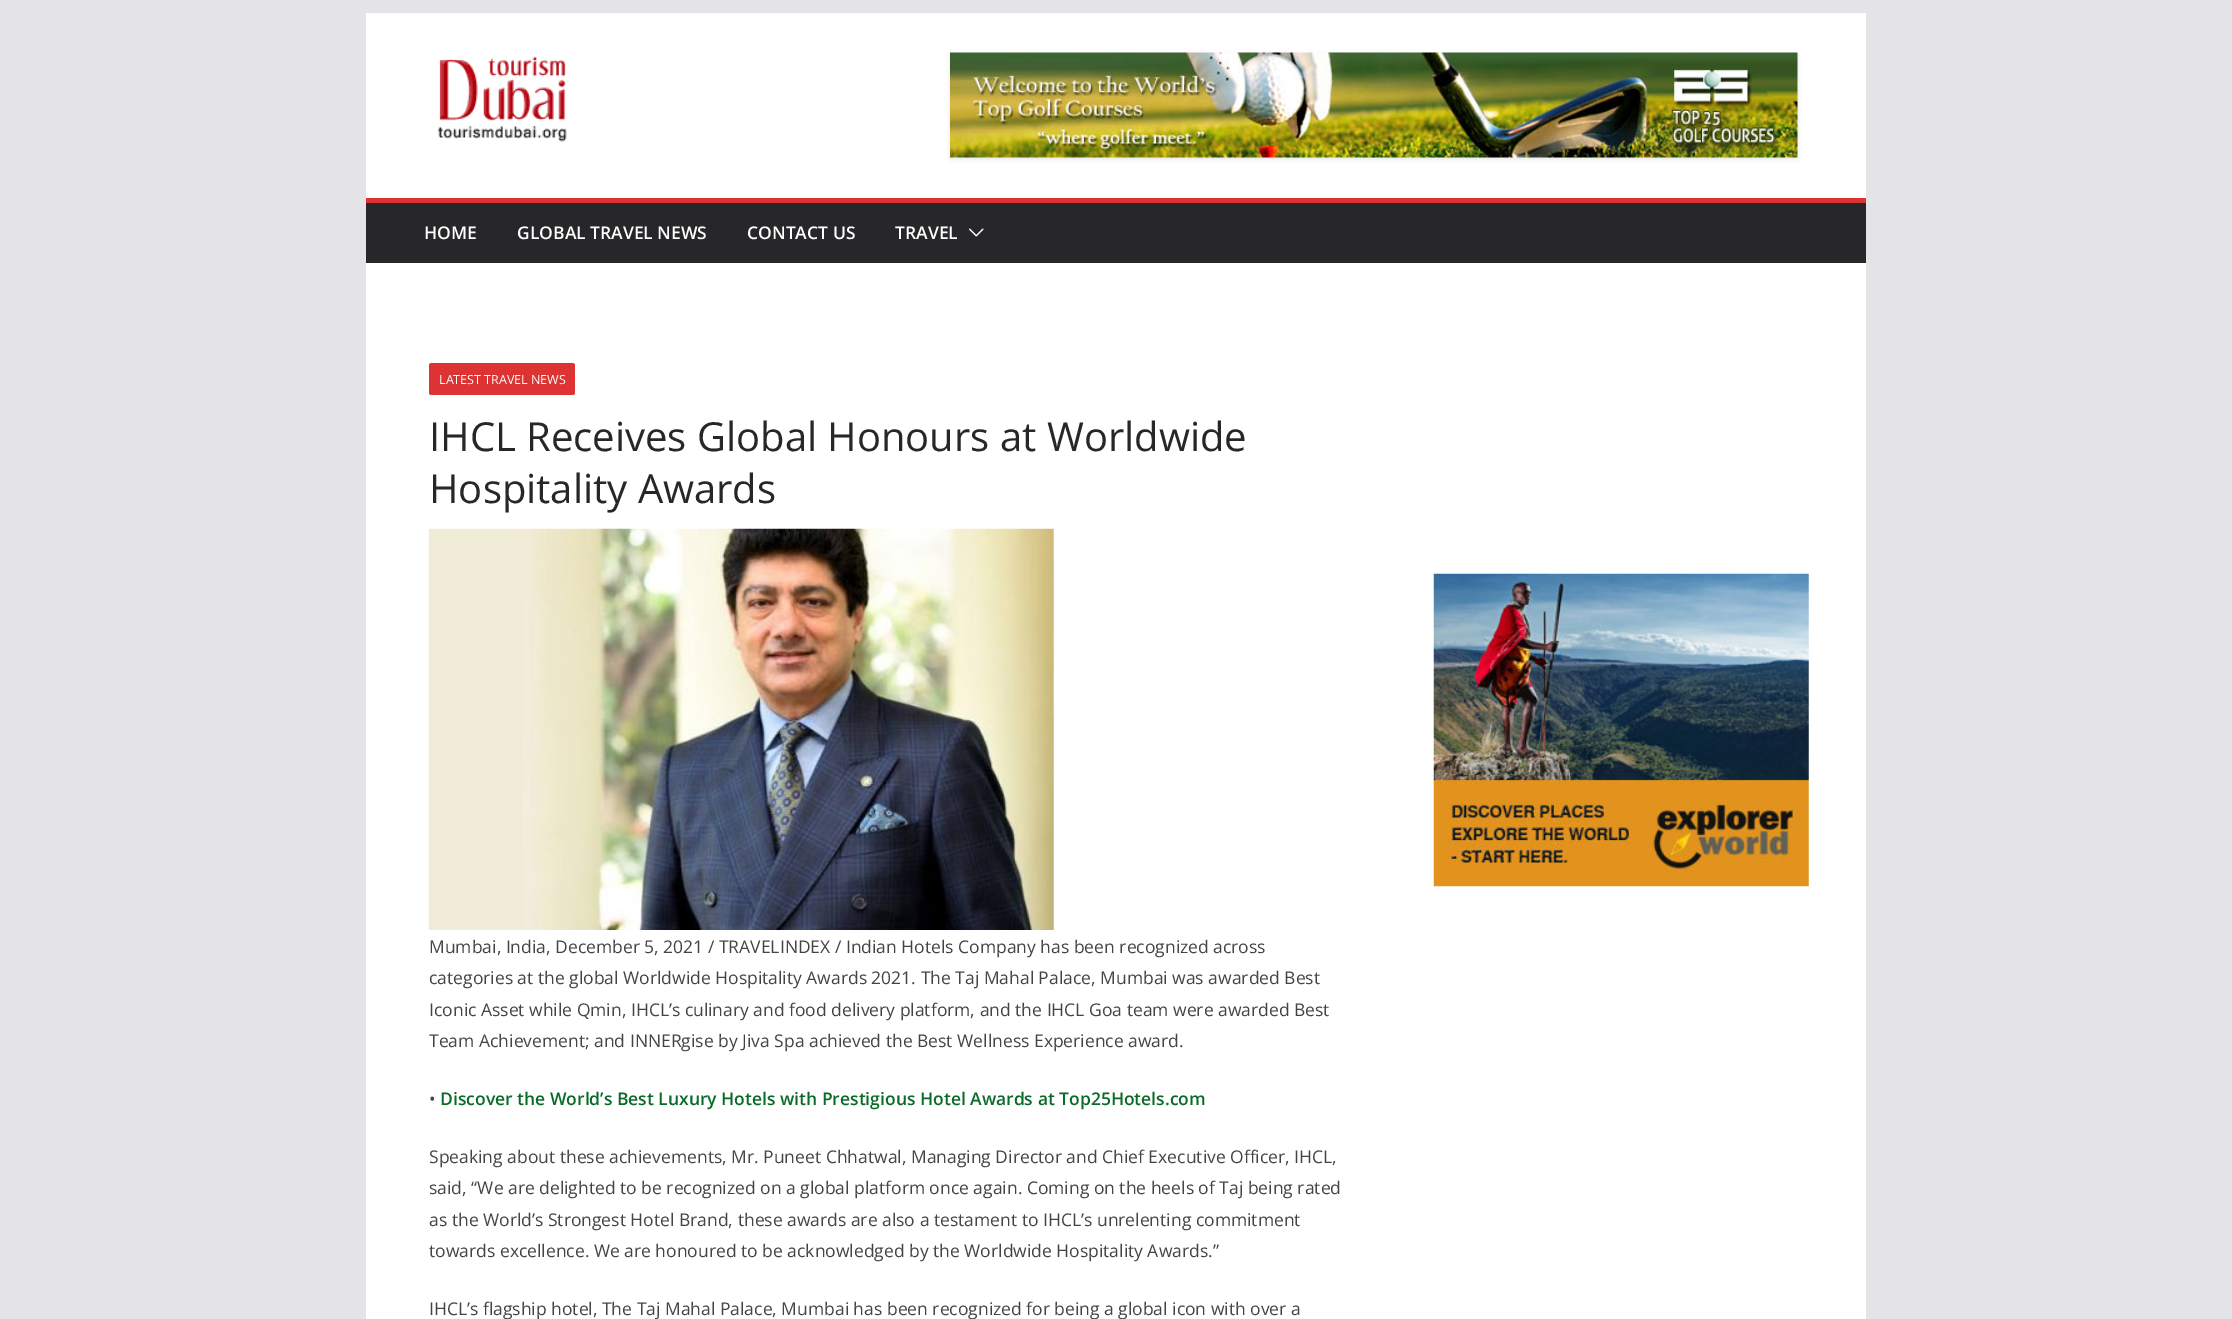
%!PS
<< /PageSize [2232 1319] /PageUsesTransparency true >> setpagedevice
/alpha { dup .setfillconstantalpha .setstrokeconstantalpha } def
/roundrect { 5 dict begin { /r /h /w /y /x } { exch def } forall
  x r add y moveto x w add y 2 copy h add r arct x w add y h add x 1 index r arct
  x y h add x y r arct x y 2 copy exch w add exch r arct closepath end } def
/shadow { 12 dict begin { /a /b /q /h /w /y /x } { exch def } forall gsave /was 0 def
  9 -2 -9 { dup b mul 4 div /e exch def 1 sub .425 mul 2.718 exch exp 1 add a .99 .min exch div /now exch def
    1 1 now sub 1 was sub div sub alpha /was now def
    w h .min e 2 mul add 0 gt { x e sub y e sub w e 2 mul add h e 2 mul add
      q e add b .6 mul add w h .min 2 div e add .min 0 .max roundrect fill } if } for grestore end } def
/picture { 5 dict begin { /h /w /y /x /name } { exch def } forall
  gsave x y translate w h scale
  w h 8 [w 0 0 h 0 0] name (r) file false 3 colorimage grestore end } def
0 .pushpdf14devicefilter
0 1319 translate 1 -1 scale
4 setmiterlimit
0.894 0.894 0.906 setrgbcolor
0 0 2232 1319 rectfill
1 setgray
366 13 1500 185 rectfill
(img1.rgb) 437 56 130 86 picture
0 setgray
950 54 848 105 0 2 0.1 shadow
(img2.rgb) 950 52 848 106 picture
0.153 0.153 0.165 setrgbcolor
366 203 1500 60 rectfill
0.867 0.2 0.2 setrgbcolor
366 198 1500 5 rectfill
/OpenSans-SemiBold [17.5 0 0 -17.5 0 0] selectfont
1 setgray
424 239 moveto (HOME) show
517 239 moveto (GLOBAL TRAVEL NEWS) show
747 239 moveto (CONTACT US) show
895 239 moveto (TRAVEL) show
(img3.rgb) 969 228 15 9 picture
366 263 1500 1056 rectfill
0.867 0.2 0.2 setrgbcolor
429 363 146 32 2.5 roundrect fill
/OpenSans-Regular [12.5 0 0 -12.5 0 0] selectfont
1 setgray
439 384 moveto (LATEST TRAVEL NEWS) show
/OpenSans-Regular [40 0 0 -40 0 0] selectfont
0.153 0.153 0.165 setrgbcolor
429 451 moveto (IHCL Receives Global Honours at Worldwide) show
429 503 moveto (Hospitality Awards) show
(img4.rgb) 428 528 626 402 picture
/OpenSans-Regular [17.5 0 0 -17.5 0 0] selectfont
0.267 setgray
429 953 moveto (Mumbai, India, December 5, 2021 / TRAVELINDEX / Indian Hotels Company has been recognized across) show
429 984 moveto (categories at the global Worldwide Hospitality Awards 2021. The Taj Mahal Palace, Mumbai was awarded Best) show
429 1016 moveto (Iconic Asset while Qmin, IHCL’s culinary and food delivery platform, and the IHCL Goa team were awarded Best) show
429 1047 moveto (Team Achievement; and INNERgise by Jiva Spa achieved the Best Wellness Experience award.) show
429 1105 moveto (•) show
/OpenSans-SemiBold [17.5 0 0 -17.5 0 0] selectfont
0.035 0.42 0.153 setrgbcolor
440 1105 moveto (Discover the World’s Best Luxury Hotels with Prestigious Hotel Awards at Top25Hotels.com) show
/OpenSans-Regular [17.5 0 0 -17.5 0 0] selectfont
0.267 setgray
429 1163 moveto (Speaking about these achievements, Mr. Puneet Chhatwal, Managing Director and Chief Executive Officer, IHCL,) show
429 1194 moveto (said, “We are delighted to be recognized on a global platform once again. Coming on the heels of Taj being rated) show
429 1226 moveto (as the World’s Strongest Hotel Brand, these awards are also a testament to IHCL’s unrelenting commitment) show
429 1257 moveto (towards excellence. We are honoured to be acknowledged by the Worldwide Hospitality Awards.”) show
429 1315 moveto (IHCL’s flagship hotel, The Taj Mahal Palace, Mumbai has been recognized for being a global icon with over a) show
(img5.rgb) 1433 573 376 314 picture
.poppdf14devicefilter showpage
